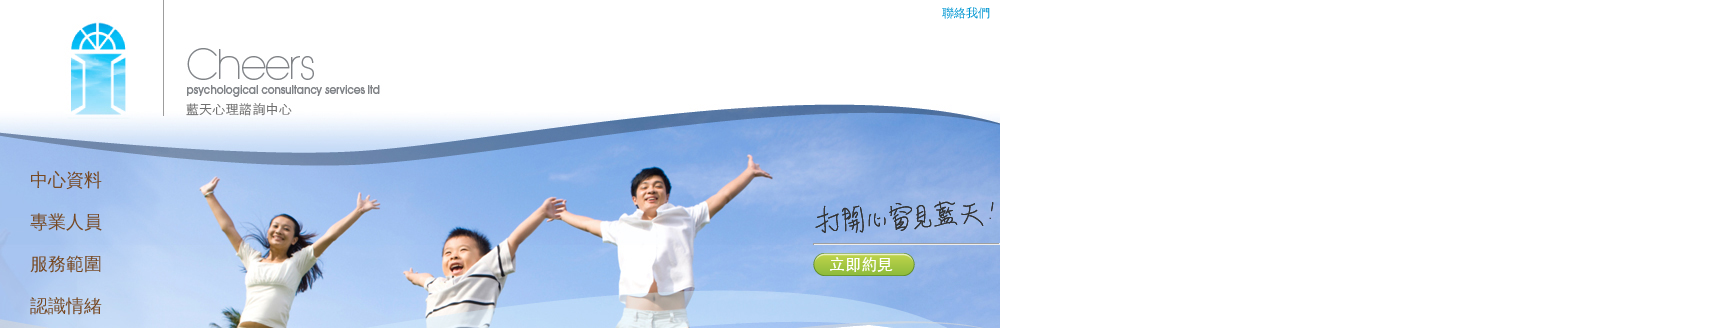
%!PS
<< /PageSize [1712 328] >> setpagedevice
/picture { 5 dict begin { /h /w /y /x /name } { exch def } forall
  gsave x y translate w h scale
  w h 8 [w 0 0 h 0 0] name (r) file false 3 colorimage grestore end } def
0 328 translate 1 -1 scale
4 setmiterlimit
1 setgray
0 0 1712 328 rectfill
(img1.rgb) 0 0 1000 328 picture
/WenQuanYiZenHei-Medium [12 0 0 -12 0 0] selectfont
0 0.592 0.827 setrgbcolor
942 17 moveto (聯絡我們) show
/WenQuanYiZenHei-Medium [18 0 0 -18 0 0] selectfont
0.467 0.286 0.137 setrgbcolor
30 186 moveto (中心資料) show
30 228 moveto (專業人員) show
30 270 moveto (服務範圍) show
30 312 moveto (認識情緒) show
(img2.rgb) 815 201 179 32 picture
0.624 setgray
813 243 187 1 rectfill
0.933 setgray
999 243 1 2 rectfill
813 244 187 1 rectfill
0.624 setgray
813 243 1 2 rectfill
(img3.rgb) 813 253 102 23 picture
showpage
